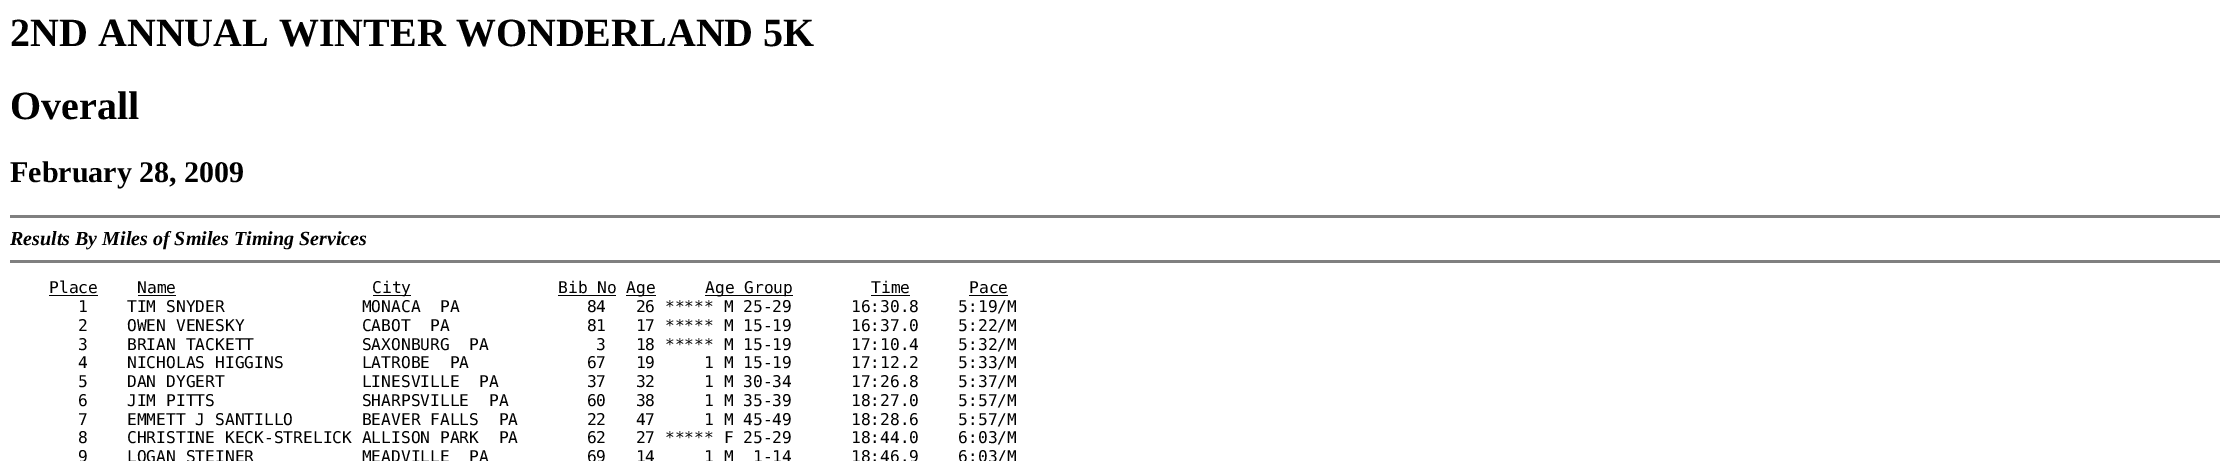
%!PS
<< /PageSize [2230 461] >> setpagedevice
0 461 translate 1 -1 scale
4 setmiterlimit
1 setgray
0 0 2230 461 rectfill
/LiberationSerif-Bold [40 0 0 -40 0 0] selectfont
0 setgray
10 46 moveto (2ND ANNUAL WINTER WONDERLAND 5K) show
10 119 moveto (Overall) show
/LiberationSerif-Bold [30 0 0 -30 0 0] selectfont
10 182 moveto (February 28, 2009) show
0.502 setgray
10 215 2210 3 rectfill
/LiberationSerif-BoldItalic [20 0 0 -20 0 0] selectfont
0 setgray
10 245 moveto (Results By Miles of Smiles Timing Services) show
0.502 setgray
10 260 2210 3 rectfill
/DejaVuSansMono-Regular [16.25 0 0 -16.25 0 0] selectfont
0 setgray
49 293 moveto (Place) show
49 295 49 1 rectfill
137 293 moveto (Name) show
138 295 38 1 rectfill
373 295 38 1 rectfill
372 293 moveto (City) show
558 293 moveto (Bib No) show
558 295 58 1 rectfill
626 295 30 1 rectfill
626 293 moveto (Age) show
705 295 88 1 rectfill
705 293 moveto (Age Group) show
871 293 moveto (Time) show
871 295 39 1 rectfill
969 293 moveto (Pace) show
969 295 39 1 rectfill
78 312 moveto (1    TIM SNYDER              MONACA  PA             84   26 ***** M 25-29      16:30.8    5:19/M) show
78 331 moveto (2    OWEN VENESKY            CABOT  PA              81   17 ***** M 15-19      16:37.0    5:22/M) show
78 350 moveto (3    BRIAN TACKETT           SAXONBURG  PA           3   18 ***** M 15-19      17:10.4    5:32/M) show
78 368 moveto (4    NICHOLAS HIGGINS        LATROBE  PA            67   19     1 M 15-19      17:12.2    5:33/M) show
78 387 moveto (5    DAN DYGERT              LINESVILLE  PA         37   32     1 M 30-34      17:26.8    5:37/M) show
78 406 moveto (6    JIM PITTS               SHARPSVILLE  PA        60   38     1 M 35-39      18:27.0    5:57/M) show
78 425 moveto (7    EMMETT J SANTILLO       BEAVER FALLS  PA       22   47     1 M 45-49      18:28.6    5:57/M) show
78 443 moveto (8    CHRISTINE KECK-STRELICK ALLISON PARK  PA       62   27 ***** F 25-29      18:44.0    6:03/M) show
78 462 moveto (9    LOGAN STEINER           MEADVILLE  PA          69   14     1 M  1-14      18:46.9    6:03/M) show
showpage
